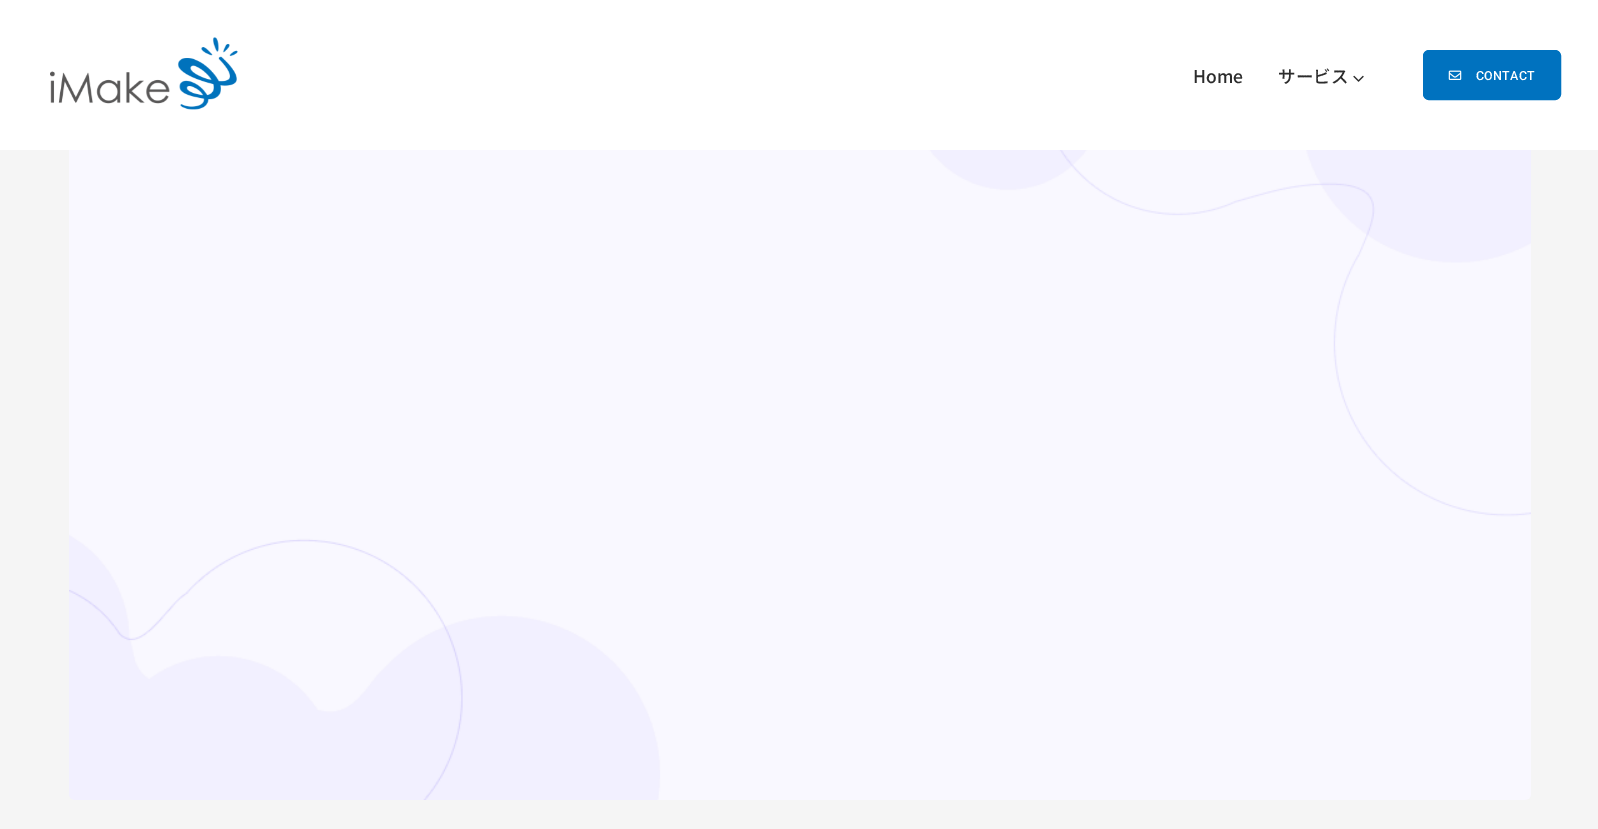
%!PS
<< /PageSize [1598 829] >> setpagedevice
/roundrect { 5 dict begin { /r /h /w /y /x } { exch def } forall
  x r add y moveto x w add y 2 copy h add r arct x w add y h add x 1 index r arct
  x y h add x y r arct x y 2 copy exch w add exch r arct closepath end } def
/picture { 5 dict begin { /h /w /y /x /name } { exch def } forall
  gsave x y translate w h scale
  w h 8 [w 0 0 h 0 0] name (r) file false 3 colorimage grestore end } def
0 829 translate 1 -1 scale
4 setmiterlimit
0.961 setgray
0 0 1598 829 rectfill
1 setgray
0 0 1598 150 rectfill
(img1.rgb) 50 37 188 73 picture
/NotoSansJP-Medium [17.5 0 0 -17.5 0 0] selectfont
0.173 setgray
1193 83 moveto (Home) show
1278 83 moveto (サービス) show
(img2.rgb) 1353 75 11 7 picture
0 0.447 0.749 setrgbcolor
1423.5 50.5 137 49 5.5 roundrect gsave fill grestore
stroke
(img3.rgb) 1448 70 14 10 picture
/Roboto-Medium [12.5 0 0 -12.5 0 0] selectfont
1 setgray
1476 80 moveto 0.25 0 (CONTACT) ashow
(img4.rgb) 69 150 1462 650 picture
showpage
